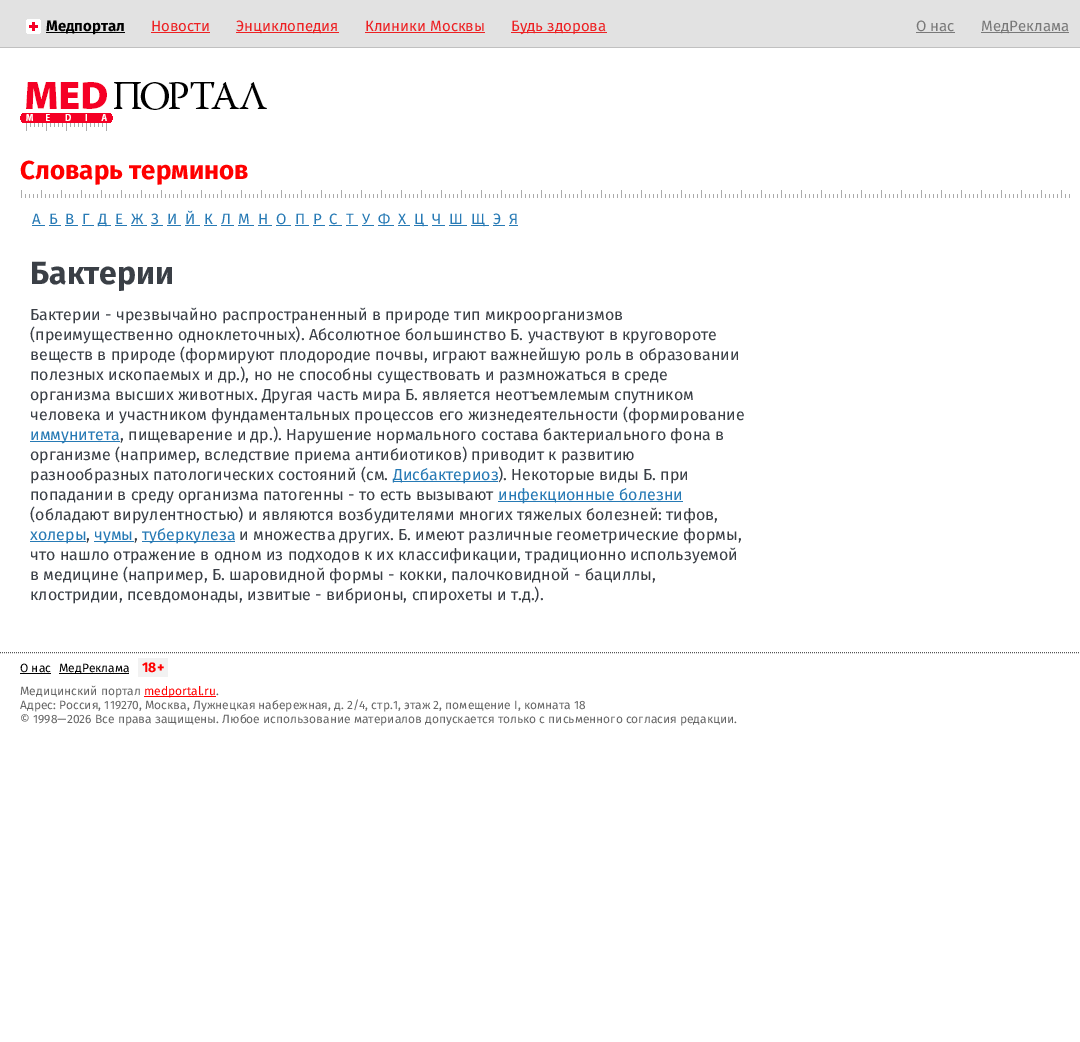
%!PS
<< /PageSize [1080 1042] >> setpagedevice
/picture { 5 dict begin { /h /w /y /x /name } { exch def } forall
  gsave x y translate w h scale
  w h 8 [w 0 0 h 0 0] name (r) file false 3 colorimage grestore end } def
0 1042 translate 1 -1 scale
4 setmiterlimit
1 setgray
0 0 1080 1042 rectfill
0.886 setgray
0 0 1080 47 rectfill
0.753 setgray
0 47 1080 1 rectfill
(img1.rgb) 26 19 15 15 picture
0 setgray
46 32 79 1 rectfill
/FiraSans-Bold [15 0 0 -15 0 0] selectfont
46 31 moveto (Медпортал) show
/FiraSans-Regular [15 0 0 -15 0 0] selectfont
0.929 0.129 0.137 setrgbcolor
151 31 moveto (Новости) show
151 32 59 1 rectfill
236 32 103 1 rectfill
236 31 moveto (Энциклопедия) show
365 31 moveto (Клиники Москвы) show
365 32 120 1 rectfill
511 32 96 1 rectfill
511 31 moveto (Будь здорова) show
0.475 setgray
916 31 moveto (О нас) show
916 32 39 1 rectfill
981 32 88 1 rectfill
981 31 moveto (МедРеклама) show
(img2.rgb) 20 82 247 49 picture
(img3.rgb) 21 190 1049 8 picture
/FiraSans-Bold [26 0 0 -26 0 0] selectfont
1 0 0 setrgbcolor
20 179 moveto (Словарь терминов) show
/FiraSans-Regular [15 0 0 -15 0 0] selectfont
0.153 0.478 0.71 setrgbcolor
32 224 moveto (А) show
32 225 13 1 rectfill
49 224 moveto (Б) show
49 225 12 1 rectfill
65 224 moveto (В) show
65 225 13 1 rectfill
82 224 moveto (Г) show
82 225 12 1 rectfill
98 225 13 1 rectfill
98 224 moveto (Д) show
115 224 moveto (Е) show
115 225 12 1 rectfill
131 224 moveto (Ж) show
131 225 16 1 rectfill
151 224 moveto (З) show
151 225 12 1 rectfill
167 224 moveto (И) show
167 225 14 1 rectfill
185 224 moveto (Й) show
185 225 15 1 rectfill
204 224 moveto (К) show
204 225 13 1 rectfill
221 224 moveto (Л) show
221 225 13 1 rectfill
238 224 moveto (М) show
238 225 16 1 rectfill
258 224 moveto (Н) show
258 225 14 1 rectfill
276 224 moveto (О) show
276 225 15 1 rectfill
295 224 moveto (П) show
295 225 14 1 rectfill
313 224 moveto (Р) show
313 225 12 1 rectfill
329 224 moveto (С) show
329 225 13 1 rectfill
346 224 moveto (Т) show
346 225 12 1 rectfill
362 224 moveto (У) show
362 225 12 1 rectfill
378 224 moveto (Ф) show
378 225 16 1 rectfill
398 224 moveto (Х) show
398 225 12 1 rectfill
414 225 14 1 rectfill
414 224 moveto (Ц) show
432 224 moveto (Ч) show
432 225 13 1 rectfill
449 224 moveto (Ш) show
449 225 18 1 rectfill
471 225 18 1 rectfill
471 224 moveto (Щ) show
493 224 moveto (Э) show
493 225 12 1 rectfill
509 224 moveto (Я) show
509 225 9 1 rectfill
/FiraSans-Bold [32 0 0 -32 0 0] selectfont
0.227 0.247 0.275 setrgbcolor
30 284 moveto (Бактерии) show
/FiraSans-Regular [16 0 0 -16 0 0] selectfont
30 320 moveto (Бактерии - чрезвычайно распространенный в природе тип микроорганизмов) show
30 340 moveto (\(преимущественно одноклеточных\). Абсолютное большинство Б. участвуют в круговороте) show
30 360 moveto (веществ в природе \(формируют плодородие почвы, играют важнейшую роль в образовании) show
30 380 moveto (полезных ископаемых и др.\), но не способны существовать и размножаться в среде) show
30 400 moveto (организма высших животных. Другая часть мира Б. является неотъемлемым спутником) show
30 420 moveto (человека и участником фундаментальных процессов его жизнедеятельности \(формирование) show
0.153 0.478 0.71 setrgbcolor
30 441 90 1 rectfill
30 440 moveto (иммунитета) show
0.227 0.247 0.275 setrgbcolor
120 440 moveto (, пищеварение и др.\). Нарушение нормального состава бактериального фона в) show
30 460 moveto (организме \(например, вследствие приема антибиотиков\) приводит к развитию) show
30 480 moveto (разнообразных патологических состояний \(см.) show
0.153 0.478 0.71 setrgbcolor
393 481 105 1 rectfill
393 480 moveto (Дисбактериоз) show
0.227 0.247 0.275 setrgbcolor
498 480 moveto (\). Некоторые виды Б. при) show
30 500 moveto (попадании в среду организма патогенны - то есть вызывают) show
0.153 0.478 0.71 setrgbcolor
498 501 185 1 rectfill
498 500 moveto (инфекционные болезни) show
0.227 0.247 0.275 setrgbcolor
30 520 moveto (\(обладают вирулентностью\) и являются возбудителями многих тяжелых болезней: тифов,) show
0.153 0.478 0.71 setrgbcolor
30 541 56 1 rectfill
30 540 moveto (холеры) show
0.227 0.247 0.275 setrgbcolor
86 540 moveto (,) show
0.153 0.478 0.71 setrgbcolor
94 541 40 1 rectfill
94 540 moveto (чумы) show
0.227 0.247 0.275 setrgbcolor
134 540 moveto (,) show
0.153 0.478 0.71 setrgbcolor
142 541 93 1 rectfill
142 540 moveto (туберкулеза) show
0.227 0.247 0.275 setrgbcolor
239 540 moveto (и множества других. Б. имеют различные геометрические формы,) show
30 560 moveto (что нашло отражение в одном из подходов к их классификации, традиционно используемой) show
30 580 moveto (в медицине \(например, Б. шаровидной формы - кокки, палочковидной - бациллы,) show
30 600 moveto (клостридии, псевдомонады, извитые - вибрионы, спирохеты и т.д.\).) show
0.333 setgray
[1 1] 0 setdash
newpath 0 652.5 moveto 1080 652.5 lineto stroke
/FiraSans-Regular [12 0 0 -12 0 0] selectfont
0 setgray
20 672 moveto (О нас) show
20 673 31 1 rectfill
59 673 70 1 rectfill
59 672 moveto (МедРеклама) show
0.949 setgray
138 658 30 19 rectfill
/FiraSans-Bold [14 0 0 -14 0 0] selectfont
1 0 0 setrgbcolor
142 672 moveto (18+) show
/FiraSans-Regular [12 0 0 -12 0 0] selectfont
0.4 setgray
20 695 moveto (Медицинский портал) show
1 0 0 setrgbcolor
144 696 72 1 rectfill
144 695 moveto (medportal.ru) show
0.4 setgray
216 695 moveto (.) show
20 709 moveto (Адрес: Россия, 119270, Москва, Лужнецкая набережная, д. 2/4, стр.1, этаж 2, помещение I, комната 18) show
20 723 moveto (© 1998—2026 Все права защищены. Любое использование материалов допускается только с письменного согласия редакции.) show
showpage
